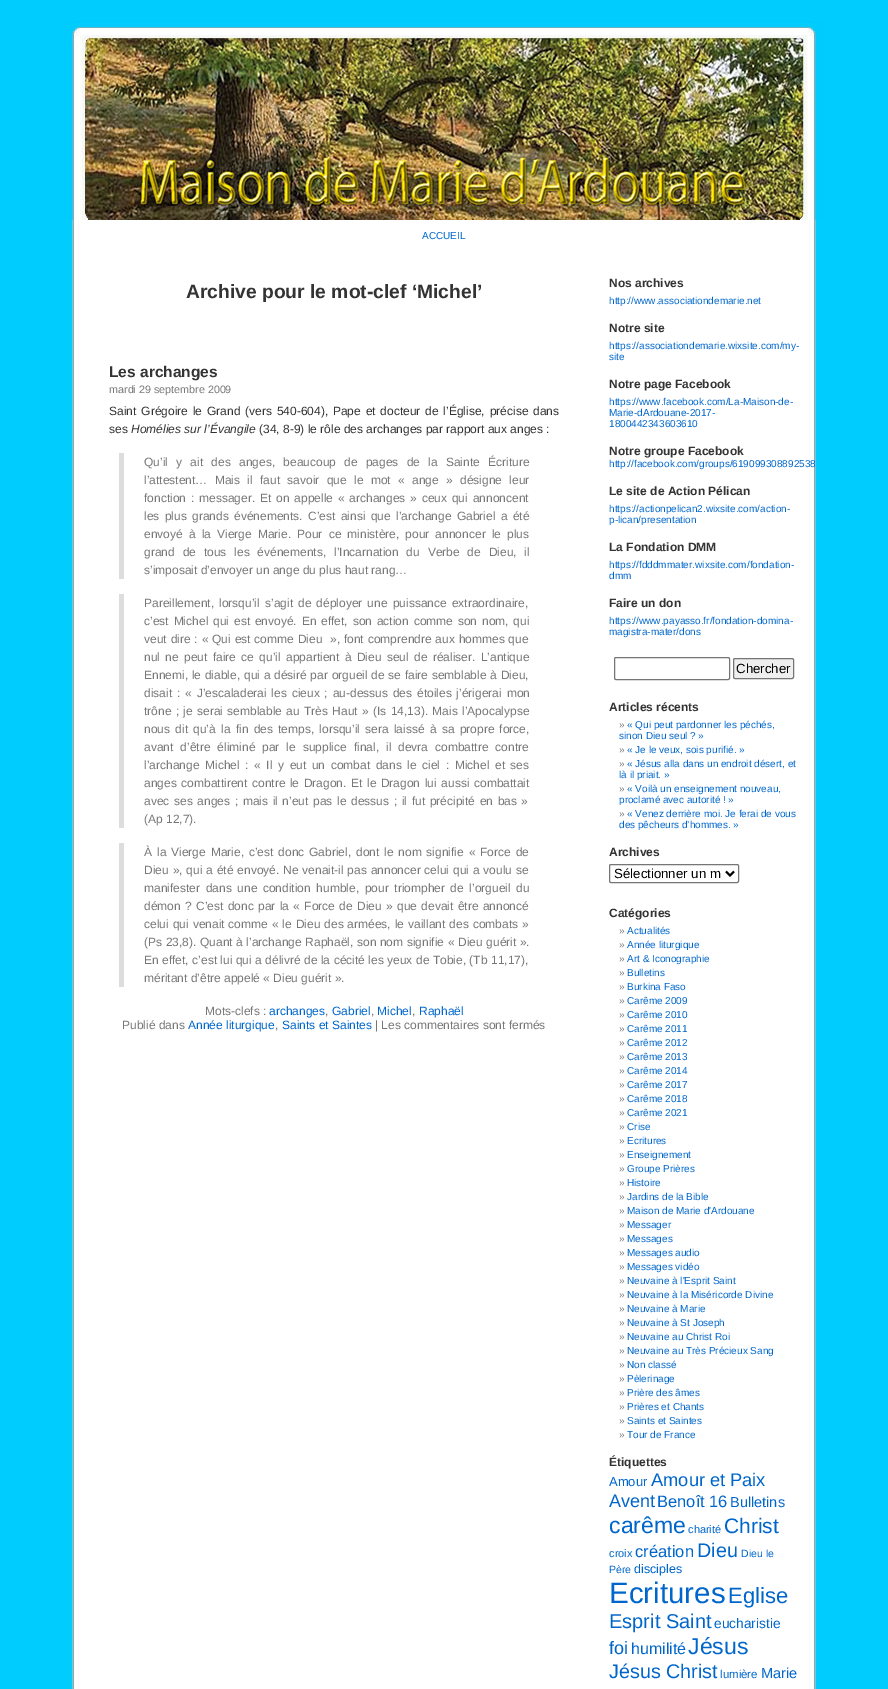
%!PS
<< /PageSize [888 1689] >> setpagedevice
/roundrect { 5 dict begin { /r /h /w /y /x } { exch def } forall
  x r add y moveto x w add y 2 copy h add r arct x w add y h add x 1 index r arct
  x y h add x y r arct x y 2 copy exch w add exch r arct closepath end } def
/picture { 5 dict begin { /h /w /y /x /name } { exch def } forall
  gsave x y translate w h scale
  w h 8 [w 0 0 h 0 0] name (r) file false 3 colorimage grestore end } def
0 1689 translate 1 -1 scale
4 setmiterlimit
0 0.8 0.992 setrgbcolor
0 0 888 1689 rectfill
(img1.rgb) 72 220 744 1469 picture
(img2.rgb) 65 20 758 200 picture
/LiberationSans-Regular [10 0 0 -10 0 0] selectfont
0 0.4 0.8 setrgbcolor
422 239 moveto (ACCUEIL) show
/LiberationSans-Bold [19.25 0 0 -19.25 0 0] selectfont
0.2 setgray
186 298 moveto (Archive pour le mot-clef ‘Michel’) show
/LiberationSans-Bold [15.5 0 0 -15.5 0 0] selectfont
109 377 moveto (Les archanges) show
/LiberationSans-Regular [10.75 0 0 -10.75 0 0] selectfont
0.467 setgray
109 393 moveto (mardi 29 septembre 2009) show
/LiberationSans-Regular [12 0 0 -12 0 0] selectfont
0.2 setgray
109 415 moveto 1.5 0 32 (Saint Grégoire le Grand \(vers 540-604\), Pape et docteur de l’Église, précise dans) widthshow
109 433 moveto (ses) show
/LiberationSans-Italic [12 0 0 -12 0 0] selectfont
131 433 moveto (Homélies sur l’Évangile) show
/LiberationSans-Regular [12 0 0 -12 0 0] selectfont
259 433 moveto (\(34, 8-9\) le rôle des archanges par rapport aux anges :) show
0.867 setgray
119 453 5 126 rectfill
0.467 setgray
144 466 moveto 4.9 0 32 (Qu’il y ait des anges, beaucoup de pages de la Sainte Écriture) widthshow
144 484 moveto 4 0 32 (l’attestent… Mais il faut savoir que le mot « ange » désigne leur) widthshow
144 502 moveto 1.5 0 32 (fonction : messager. Et on appelle « archanges » ceux qui annoncent) widthshow
144 520 moveto 2 0 32 (les plus grands événements. C’est ainsi que l’archange Gabriel a été) widthshow
144 538 moveto 2.75 0 32 (envoyé à la Vierge Marie. Pour ce ministère, pour annoncer le plus) widthshow
144 556 moveto 4.5 0 32 (grand de tous les événements, l’Incarnation du Verbe de Dieu, il) widthshow
144 574 moveto (s’imposait d’envoyer un ange du plus haut rang…) show
0.867 setgray
119 594 5 234 rectfill
0.467 setgray
144 607 moveto 1.75 0 32 (Pareillement, lorsqu’il s’agit de déployer une puissance extraordinaire,) widthshow
144 625 moveto 1.5 0 32 (c’est Michel qui est envoyé. En effet, son action comme son nom, qui) widthshow
144 643 moveto 0.5 0 32 (veut dire : « Qui est comme Dieu  », font comprendre aux hommes que) widthshow
144 661 moveto 2 0 32 (nul ne peut faire ce qu’il appartient à Dieu seul de réaliser. L’antique) widthshow
144 679 moveto 0.4 0 32 (Ennemi, le diable, qui a désiré par orgueil de se faire semblable à Dieu,) widthshow
144 697 moveto 1.5 0 32 (disait : « J’escaladerai les cieux ; au-dessus des étoiles j’érigerai mon) widthshow
144 715 moveto 1 0 32 (trône ; je serai semblable au Très Haut » \(Is 14,13\). Mais l’Apocalypse) widthshow
144 733 moveto 1.9 0 32 (nous dit qu’à la fin des temps, lorsqu’il sera laissé à sa propre force,) widthshow
144 751 moveto 3.6 0 32 (avant d’être éliminé par le supplice final, il devra combattre contre) widthshow
144 769 moveto 2.25 0 32 (l’archange Michel : « Il y eut un combat dans le ciel : Michel et ses) widthshow
144 787 moveto 1.25 0 32 (anges combattirent contre le Dragon. Et le Dragon lui aussi combattait) widthshow
144 805 moveto 1.3 0 32 (avec ses anges ; mais il n’eut pas le dessus ; il fut précipité en bas ») widthshow
144 823 moveto (\(Ap 12,7\).) show
0.867 setgray
119 843 5 144 rectfill
0.467 setgray
144 856 moveto 1.5 0 32 (À la Vierge Marie, c’est donc Gabriel, dont le nom signifie « Force de) widthshow
144 874 moveto 0.5 0 32 (Dieu », qui a été envoyé. Ne venait-il pas annoncer celui qui a voulu se) widthshow
144 892 moveto 2.25 0 32 (manifester dans une condition humble, pour triompher de l’orgueil du) widthshow
144 910 moveto 1 0 32 (démon ? C’est donc par la « Force de Dieu » que devait être annoncé) widthshow
144 928 moveto 0.6 0 32 (celui qui venait comme « le Dieu des armées, le vaillant des combats ») widthshow
144 946 moveto 0.25 0 32 (\(Ps 23,8\). Quant à l’archange Raphaël, son nom signifie « Dieu guérit ».) widthshow
144 964 moveto 0.1 0 32 (En effet, c’est lui qui a délivré de la cécité les yeux de Tobie, \(Tb 11,17\),) widthshow
144 982 moveto (méritant d’être appelé « Dieu guérit ».) show
205 1015 moveto (Mots-clefs :) show
0 0.4 0.8 setrgbcolor
269 1015 moveto (archanges) show
0.467 setgray
325 1015 moveto (,) show
0 0.4 0.8 setrgbcolor
332 1015 moveto (Gabriel) show
0.467 setgray
371 1015 moveto (,) show
0 0.4 0.8 setrgbcolor
377 1015 moveto (Michel) show
0.467 setgray
412 1015 moveto (,) show
0 0.4 0.8 setrgbcolor
419 1015 moveto (Raphaël) show
0.467 setgray
122 1029 moveto (Publié dans) show
0 0.4 0.8 setrgbcolor
188 1029 moveto (Année liturgique) show
0.467 setgray
275 1029 moveto (,) show
0 0.4 0.8 setrgbcolor
282 1029 moveto (Saints et Saintes) show
0.467 setgray
375 1029 moveto (| Les commentaires sont fermés) show
/LiberationSans-Bold [12 0 0 -12 0 0] selectfont
0.2 setgray
609 287 moveto (Nos archives) show
/LiberationSans-Regular [10 0 0 -10 0 0] selectfont
0 0.4 0.8 setrgbcolor
609 304 moveto (http://www.associationdemarie.net) show
/LiberationSans-Bold [12 0 0 -12 0 0] selectfont
0.2 setgray
609 332 moveto (Notre site) show
/LiberationSans-Regular [10 0 0 -10 0 0] selectfont
0 0.4 0.8 setrgbcolor
609 349 moveto (https://associationdemarie.wixsite.com/my-) show
609 360 moveto (site) show
/LiberationSans-Bold [12 0 0 -12 0 0] selectfont
0.2 setgray
609 388 moveto (Notre page Facebook) show
/LiberationSans-Regular [10 0 0 -10 0 0] selectfont
0 0.4 0.8 setrgbcolor
609 405 moveto (https://www.facebook.com/La-Maison-de-) show
609 416 moveto (Marie-dArdouane-2017-) show
609 427 moveto (1800442343603610) show
/LiberationSans-Bold [12 0 0 -12 0 0] selectfont
0.2 setgray
609 455 moveto (Notre groupe Facebook) show
/LiberationSans-Regular [10 0 0 -10 0 0] selectfont
0 0.4 0.8 setrgbcolor
609 467 moveto (http://facebook.com/groups/619099308892538) show
/LiberationSans-Bold [12 0 0 -12 0 0] selectfont
0.2 setgray
609 495 moveto (Le site de Action Pélican) show
/LiberationSans-Regular [10 0 0 -10 0 0] selectfont
0 0.4 0.8 setrgbcolor
609 512 moveto (https://actionpelican2.wixsite.com/action-) show
609 523 moveto (p-lican/presentation) show
/LiberationSans-Bold [12 0 0 -12 0 0] selectfont
0.2 setgray
609 551 moveto (La Fondation DMM) show
/LiberationSans-Regular [10 0 0 -10 0 0] selectfont
0 0.4 0.8 setrgbcolor
609 568 moveto (https://fdddmmater.wixsite.com/fondation-) show
609 579 moveto (dmm) show
/LiberationSans-Bold [12 0 0 -12 0 0] selectfont
0.2 setgray
609 607 moveto (Faire un don) show
/LiberationSans-Regular [10 0 0 -10 0 0] selectfont
0 0.4 0.8 setrgbcolor
609 624 moveto (https://www.payasso.fr/fondation-domina-) show
609 635 moveto (magistra-mater/dons) show
0.463 setgray
614.5 657.5 115 22 1.5 roundrect stroke
0.937 setgray
733.5 658.5 60 20 1.5 roundrect gsave fill grestore
0.463 setgray
stroke
/LiberationSans-Regular [13.25 0 0 -13.25 0 0] selectfont
0 setgray
736 673 moveto (Chercher) show
/LiberationSans-Bold [12 0 0 -12 0 0] selectfont
0.2 setgray
609 711 moveto (Articles récents) show
/LiberationSans-Regular [10 0 0 -10 0 0] selectfont
0.467 setgray
619 728 moveto (») show
0 0.4 0.8 setrgbcolor
627 728 moveto (« Qui peut pardonner les péchés,) show
619 739 moveto (sinon Dieu seul ? ») show
0.467 setgray
619 753 moveto (») show
0 0.4 0.8 setrgbcolor
627 753 moveto (« Je le veux, sois purifié. ») show
0.467 setgray
619 767 moveto (») show
0 0.4 0.8 setrgbcolor
627 767 moveto (« Jésus alla dans un endroit désert, et) show
619 778 moveto (là il priait. ») show
0.467 setgray
619 792 moveto (») show
0 0.4 0.8 setrgbcolor
627 792 moveto (« Voilà un enseignement nouveau,) show
619 803 moveto (proclamé avec autorité ! ») show
0.467 setgray
619 817 moveto (») show
0 0.4 0.8 setrgbcolor
627 817 moveto (« Venez derrière moi. Je ferai de vous) show
619 828 moveto (des pêcheurs d’hommes. ») show
/LiberationSans-Bold [12 0 0 -12 0 0] selectfont
0.2 setgray
609 856 moveto (Archives) show
0.463 setgray
609.5 864.5 129 18 1.5 roundrect stroke
0 setgray
2 setlinewidth
newpath 726 871.5 moveto 730 875.5 lineto 734 871.5 lineto stroke
/LiberationSans-Regular [13.25 0 0 -13.25 0 0] selectfont
614 878 moveto (Sélectionner un m) show
/LiberationSans-Bold [12 0 0 -12 0 0] selectfont
0.2 setgray
609 917 moveto (Catégories) show
/LiberationSans-Regular [10 0 0 -10 0 0] selectfont
0.467 setgray
619 934 moveto (») show
0 0.4 0.8 setrgbcolor
627 934 moveto (Actualités) show
0.467 setgray
619 948 moveto (») show
0 0.4 0.8 setrgbcolor
627 948 moveto (Année liturgique) show
0.467 setgray
619 962 moveto (») show
0 0.4 0.8 setrgbcolor
627 962 moveto (Art & Iconographie) show
0.467 setgray
619 976 moveto (») show
0 0.4 0.8 setrgbcolor
627 976 moveto (Bulletins) show
0.467 setgray
619 990 moveto (») show
0 0.4 0.8 setrgbcolor
627 990 moveto (Burkina Faso) show
0.467 setgray
619 1004 moveto (») show
0 0.4 0.8 setrgbcolor
627 1004 moveto (Carême 2009) show
0.467 setgray
619 1018 moveto (») show
0 0.4 0.8 setrgbcolor
627 1018 moveto (Carême 2010) show
0.467 setgray
619 1032 moveto (») show
0 0.4 0.8 setrgbcolor
627 1032 moveto (Carême 2011) show
0.467 setgray
619 1046 moveto (») show
0 0.4 0.8 setrgbcolor
627 1046 moveto (Carême 2012) show
0.467 setgray
619 1060 moveto (») show
0 0.4 0.8 setrgbcolor
627 1060 moveto (Carême 2013) show
0.467 setgray
619 1074 moveto (») show
0 0.4 0.8 setrgbcolor
627 1074 moveto (Carême 2014) show
0.467 setgray
619 1088 moveto (») show
0 0.4 0.8 setrgbcolor
627 1088 moveto (Carême 2017) show
0.467 setgray
619 1102 moveto (») show
0 0.4 0.8 setrgbcolor
627 1102 moveto (Carême 2018) show
0.467 setgray
619 1116 moveto (») show
0 0.4 0.8 setrgbcolor
627 1116 moveto (Carême 2021) show
0.467 setgray
619 1130 moveto (») show
0 0.4 0.8 setrgbcolor
627 1130 moveto (Crise) show
0.467 setgray
619 1144 moveto (») show
0 0.4 0.8 setrgbcolor
627 1144 moveto (Ecritures) show
0.467 setgray
619 1158 moveto (») show
0 0.4 0.8 setrgbcolor
627 1158 moveto (Enseignement) show
0.467 setgray
619 1172 moveto (») show
0 0.4 0.8 setrgbcolor
627 1172 moveto (Groupe Prières) show
0.467 setgray
619 1186 moveto (») show
0 0.4 0.8 setrgbcolor
627 1186 moveto (Histoire) show
0.467 setgray
619 1200 moveto (») show
0 0.4 0.8 setrgbcolor
627 1200 moveto (Jardins de la Bible) show
0.467 setgray
619 1214 moveto (») show
0 0.4 0.8 setrgbcolor
627 1214 moveto (Maison de Marie d'Ardouane) show
0.467 setgray
619 1228 moveto (») show
0 0.4 0.8 setrgbcolor
627 1228 moveto (Messager) show
0.467 setgray
619 1242 moveto (») show
0 0.4 0.8 setrgbcolor
627 1242 moveto (Messages) show
0.467 setgray
619 1256 moveto (») show
0 0.4 0.8 setrgbcolor
627 1256 moveto (Messages audio) show
0.467 setgray
619 1270 moveto (») show
0 0.4 0.8 setrgbcolor
627 1270 moveto (Messages vidéo) show
0.467 setgray
619 1284 moveto (») show
0 0.4 0.8 setrgbcolor
627 1284 moveto (Neuvaine à l'Esprit Saint) show
0.467 setgray
619 1298 moveto (») show
0 0.4 0.8 setrgbcolor
627 1298 moveto (Neuvaine à la Miséricorde Divine) show
0.467 setgray
619 1312 moveto (») show
0 0.4 0.8 setrgbcolor
627 1312 moveto (Neuvaine à Marie) show
0.467 setgray
619 1326 moveto (») show
0 0.4 0.8 setrgbcolor
627 1326 moveto (Neuvaine à St Joseph) show
0.467 setgray
619 1340 moveto (») show
0 0.4 0.8 setrgbcolor
627 1340 moveto (Neuvaine au Christ Roi) show
0.467 setgray
619 1354 moveto (») show
0 0.4 0.8 setrgbcolor
627 1354 moveto (Neuvaine au Très Précieux Sang) show
0.467 setgray
619 1368 moveto (») show
0 0.4 0.8 setrgbcolor
627 1368 moveto (Non classé) show
0.467 setgray
619 1382 moveto (») show
0 0.4 0.8 setrgbcolor
627 1382 moveto (Pèlerinage) show
0.467 setgray
619 1396 moveto (») show
0 0.4 0.8 setrgbcolor
627 1396 moveto (Prière des âmes) show
0.467 setgray
619 1410 moveto (») show
0 0.4 0.8 setrgbcolor
627 1410 moveto (Prières et Chants) show
0.467 setgray
619 1424 moveto (») show
0 0.4 0.8 setrgbcolor
627 1424 moveto (Saints et Saintes) show
0.467 setgray
619 1438 moveto (») show
0 0.4 0.8 setrgbcolor
627 1438 moveto (Tour de France) show
/LiberationSans-Bold [12 0 0 -12 0 0] selectfont
0.2 setgray
609 1466 moveto (Étiquettes) show
/LiberationSans-Regular [13 0 0 -13 0 0] selectfont
0 0.4 0.8 setrgbcolor
609 1486 moveto (Amour) show
/LiberationSans-Regular [18.25 0 0 -18.25 0 0] selectfont
651 1486 moveto (Amour et Paix) show
/LiberationSans-Regular [18 0 0 -18 0 0] selectfont
609 1507 moveto (Avent) show
/LiberationSans-Regular [16.5 0 0 -16.5 0 0] selectfont
657 1507 moveto (Benoît 16) show
/LiberationSans-Regular [14.5 0 0 -14.5 0 0] selectfont
730 1507 moveto (Bulletins) show
/LiberationSans-Regular [23 0 0 -23 0 0] selectfont
609 1533 moveto (carême) show
/LiberationSans-Regular [11 0 0 -11 0 0] selectfont
688 1533 moveto (charité) show
/LiberationSans-Regular [21 0 0 -21 0 0] selectfont
724 1533 moveto (Christ) show
/LiberationSans-Regular [11 0 0 -11 0 0] selectfont
609 1557 moveto (croix) show
/LiberationSans-Regular [16.5 0 0 -16.5 0 0] selectfont
635 1557 moveto (création) show
/LiberationSans-Regular [19.75 0 0 -19.75 0 0] selectfont
697 1557 moveto (Dieu) show
/LiberationSans-Regular [10.5 0 0 -10.5 0 0] selectfont
741 1557 moveto (Dieu le) show
609 1573 moveto (Père) show
/LiberationSans-Regular [12.5 0 0 -12.5 0 0] selectfont
634 1573 moveto (disciples) show
/LiberationSans-Regular [29.5 0 0 -29.5 0 0] selectfont
609 1603 moveto (Ecritures) show
/LiberationSans-Regular [22 0 0 -22 0 0] selectfont
728 1603 moveto (Eglise) show
/LiberationSans-Regular [20 0 0 -20 0 0] selectfont
609 1628 moveto (Esprit Saint) show
/LiberationSans-Regular [13.75 0 0 -13.75 0 0] selectfont
714 1628 moveto (eucharistie) show
/LiberationSans-Regular [18 0 0 -18 0 0] selectfont
609 1654 moveto (foi) show
/LiberationSans-Regular [16 0 0 -16 0 0] selectfont
631 1654 moveto (humilité) show
/LiberationSans-Regular [23 0 0 -23 0 0] selectfont
688 1654 moveto (Jésus) show
/LiberationSans-Regular [19.75 0 0 -19.75 0 0] selectfont
609 1678 moveto (Jésus Christ) show
/LiberationSans-Regular [11.5 0 0 -11.5 0 0] selectfont
720 1678 moveto (lumière) show
/LiberationSans-Regular [14.5 0 0 -14.5 0 0] selectfont
761 1678 moveto (Marie) show
showpage
